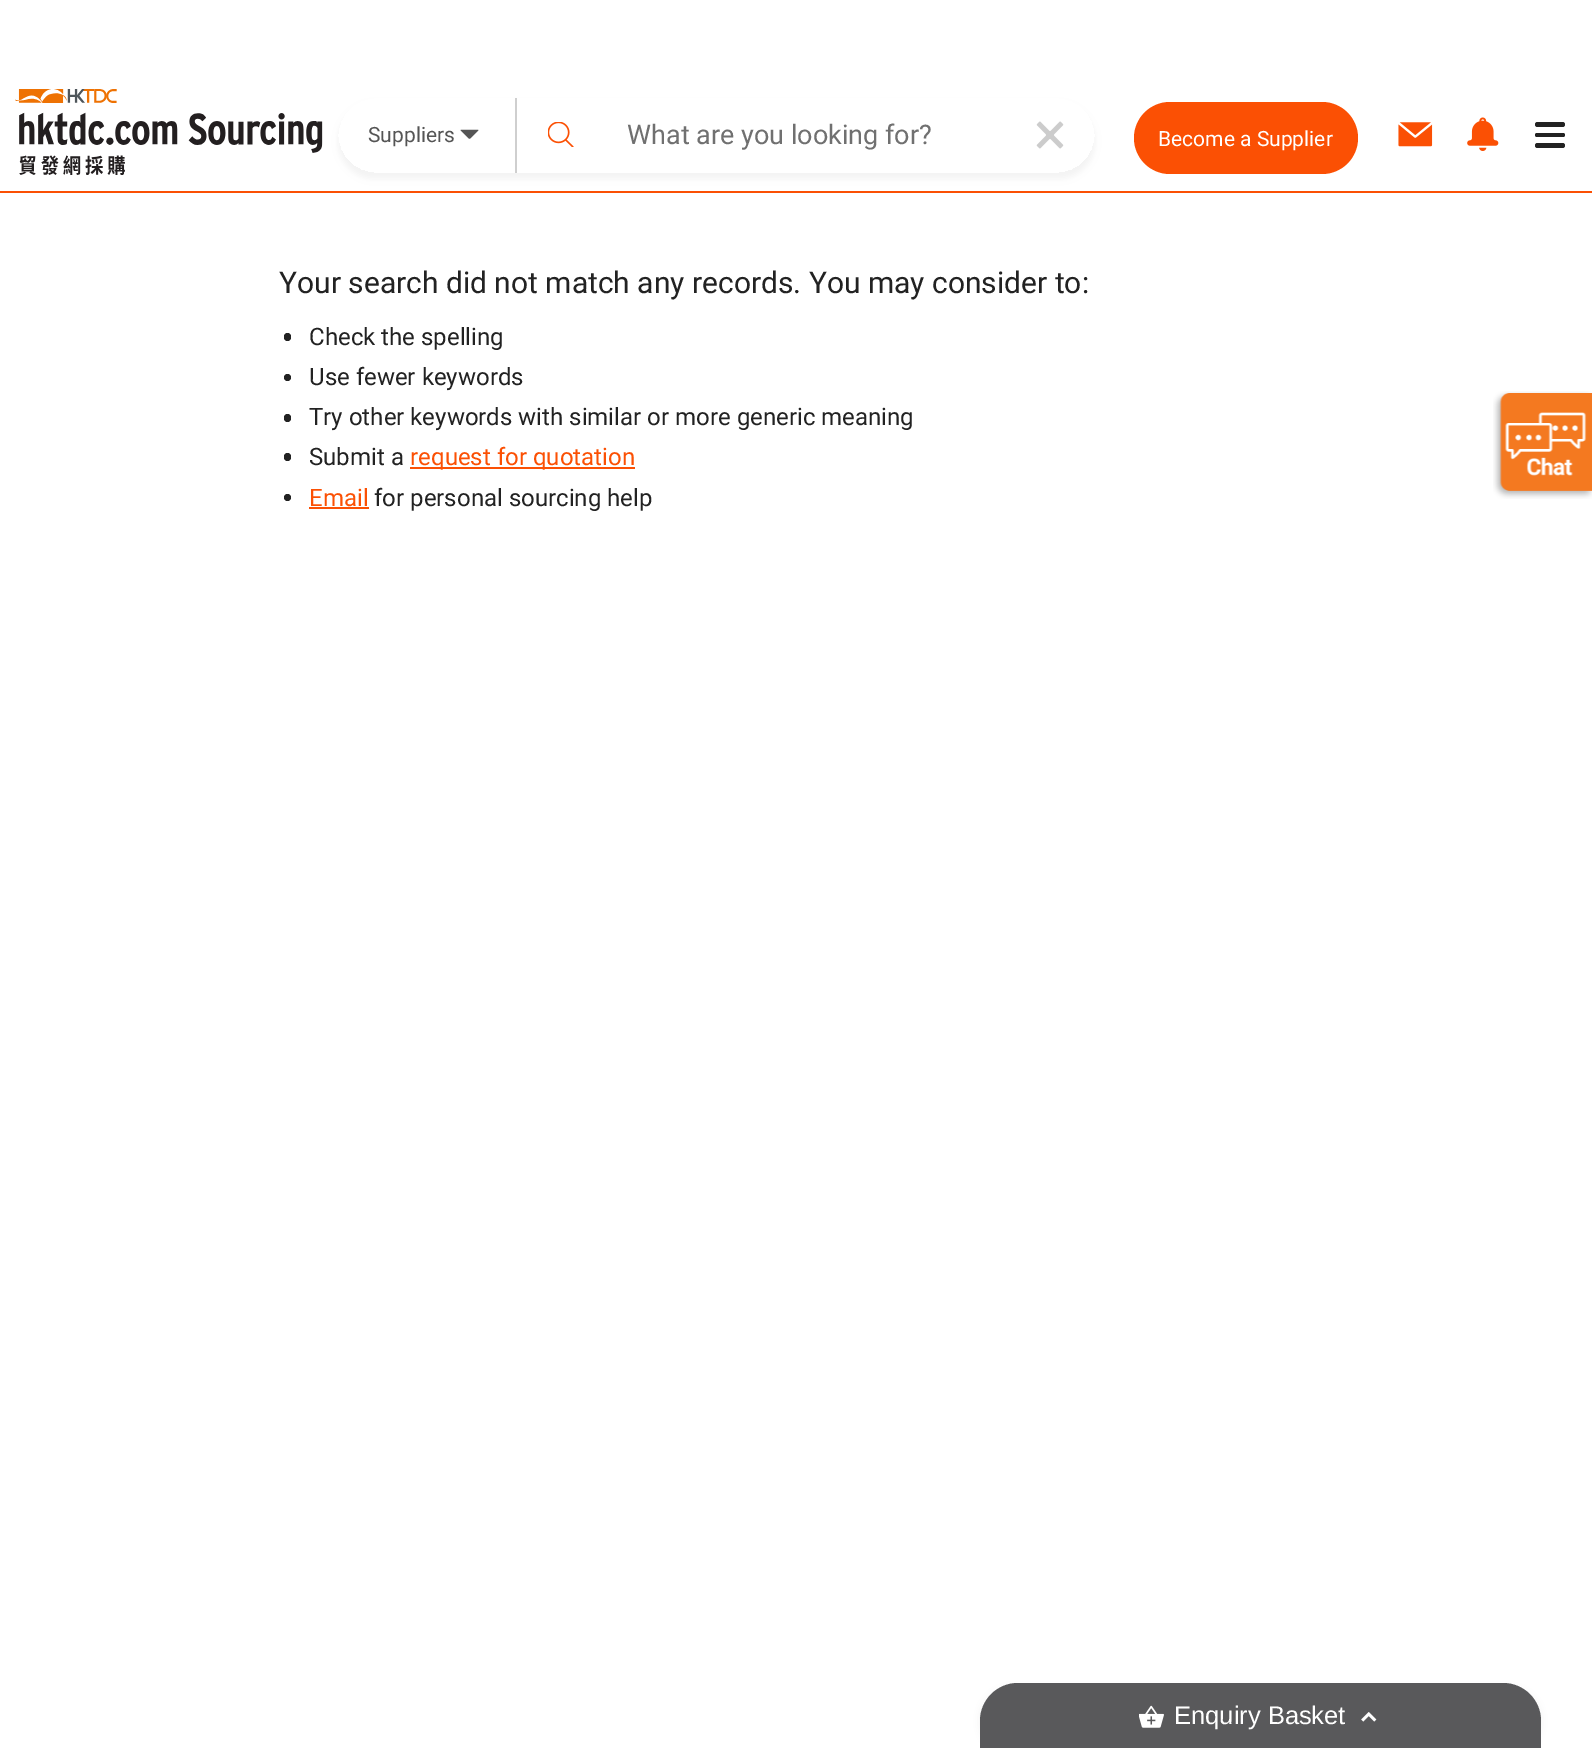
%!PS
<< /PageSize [1592 1748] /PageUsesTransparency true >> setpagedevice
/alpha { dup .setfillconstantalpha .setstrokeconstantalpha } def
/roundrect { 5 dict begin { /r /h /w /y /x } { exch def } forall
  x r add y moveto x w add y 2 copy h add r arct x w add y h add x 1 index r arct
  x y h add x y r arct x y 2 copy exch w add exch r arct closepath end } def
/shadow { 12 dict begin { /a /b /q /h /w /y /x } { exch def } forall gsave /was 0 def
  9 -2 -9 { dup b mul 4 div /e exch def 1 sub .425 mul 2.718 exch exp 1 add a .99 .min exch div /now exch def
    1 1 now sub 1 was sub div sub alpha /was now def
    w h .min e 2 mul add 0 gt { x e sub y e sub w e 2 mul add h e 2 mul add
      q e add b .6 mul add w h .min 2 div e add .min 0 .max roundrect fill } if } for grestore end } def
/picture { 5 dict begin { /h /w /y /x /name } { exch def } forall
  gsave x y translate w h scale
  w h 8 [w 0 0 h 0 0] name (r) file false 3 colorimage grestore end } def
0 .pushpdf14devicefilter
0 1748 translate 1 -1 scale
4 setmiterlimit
1 setgray
0 0 1592 1748 rectfill
0.984 0.314 0.016 setrgbcolor
0 191 1592 2 rectfill
(img1.rgb) 15 89 308 86 picture
gsave
newpath 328 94 moveto 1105 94 lineto 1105 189 lineto 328 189 lineto closepath 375.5 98 moveto 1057.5 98 lineto 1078 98 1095 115 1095 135.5 curveto 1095 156 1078 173 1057.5 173 curveto 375.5 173 lineto 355 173 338 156 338 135.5 curveto 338 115 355 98 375.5 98 curveto closepath eoclip newpath
0.498 setgray
338 104 757 75 37.5 3 0.1 shadow
grestore
0.812 setgray
515 98 2 75 rectfill
/Roboto-Regular [21 0 0 -21 0 0] selectfont
0.333 setgray
368 142 moveto (Suppliers) show
(img2.rgb) 460 129 19 10 picture
(img3.rgb) 548 122 26 25 picture
/Roboto-Regular [27 0 0 -27 0 0] selectfont
0.439 setgray
627 144 moveto (What are you looking for?) show
(img4.rgb) 1036 121 28 28 picture
0.984 0.314 0.016 setrgbcolor
1134 102 224 72 36 roundrect fill
/Roboto-Regular [21 0 0 -21 0 0] selectfont
1 setgray
1158 146 moveto (Become a Supplier) show
(img5.rgb) 1398 122 35 25 picture
(img6.rgb) 1467 117 32 34 picture
0.133 setgray
1535 122 30 5 2.5 roundrect fill
1535 133 30 4 2 roundrect fill
1535 143 30 5 2.5 roundrect fill
/Roboto-Regular [30 0 0 -30 0 0] selectfont
279 293 moveto (Your search did not match any records. You may consider to:) show
284 333 7 8 3.5 roundrect fill
/Roboto-Regular [24 0 0 -24 0 0] selectfont
309 345 moveto (Check the spelling) show
newpath 287.5 377.5 3.5 0 360 arc closepath fill
309 385 moveto (Use fewer keywords) show
284 414 7 8 3.5 roundrect fill
309 425 moveto (Try other keywords with similar or more generic meaning) show
284 453 7 8 3.5 roundrect fill
309 465 moveto (Submit a) show
0.984 0.314 0.016 setrgbcolor
410 467 225 2 rectfill
410 465 moveto (request for quotation) show
0.133 setgray
newpath 287.5 497.5 3.5 0 360 arc closepath fill
0.984 0.314 0.016 setrgbcolor
309 506 moveto (Email) show
309 507 60 2 rectfill
0.133 setgray
374 506 moveto (for personal sourcing help) show
0 setgray
980 1688 561 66 38 4 0.06 shadow
0.349 0.349 0.357 setrgbcolor
newpath 1018 1683 moveto 1503 1683 lineto 1524 1683 1541 1700 1541 1721 curveto 1541 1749 lineto 980 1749 lineto 980 1721 lineto 980 1700 997 1683 1018 1683 curveto closepath fill
(img7.rgb) 1139 1705 25 23 picture
/LiberationSans-Regular [25.5 0 0 -25.5 0 0] selectfont
1 setgray
1174 1724 moveto (Enquiry Basket) show
(img8.rgb) 1361 1712 16 10 picture
(img9.rgb) 1493 391 99 108 picture
.poppdf14devicefilter showpage
